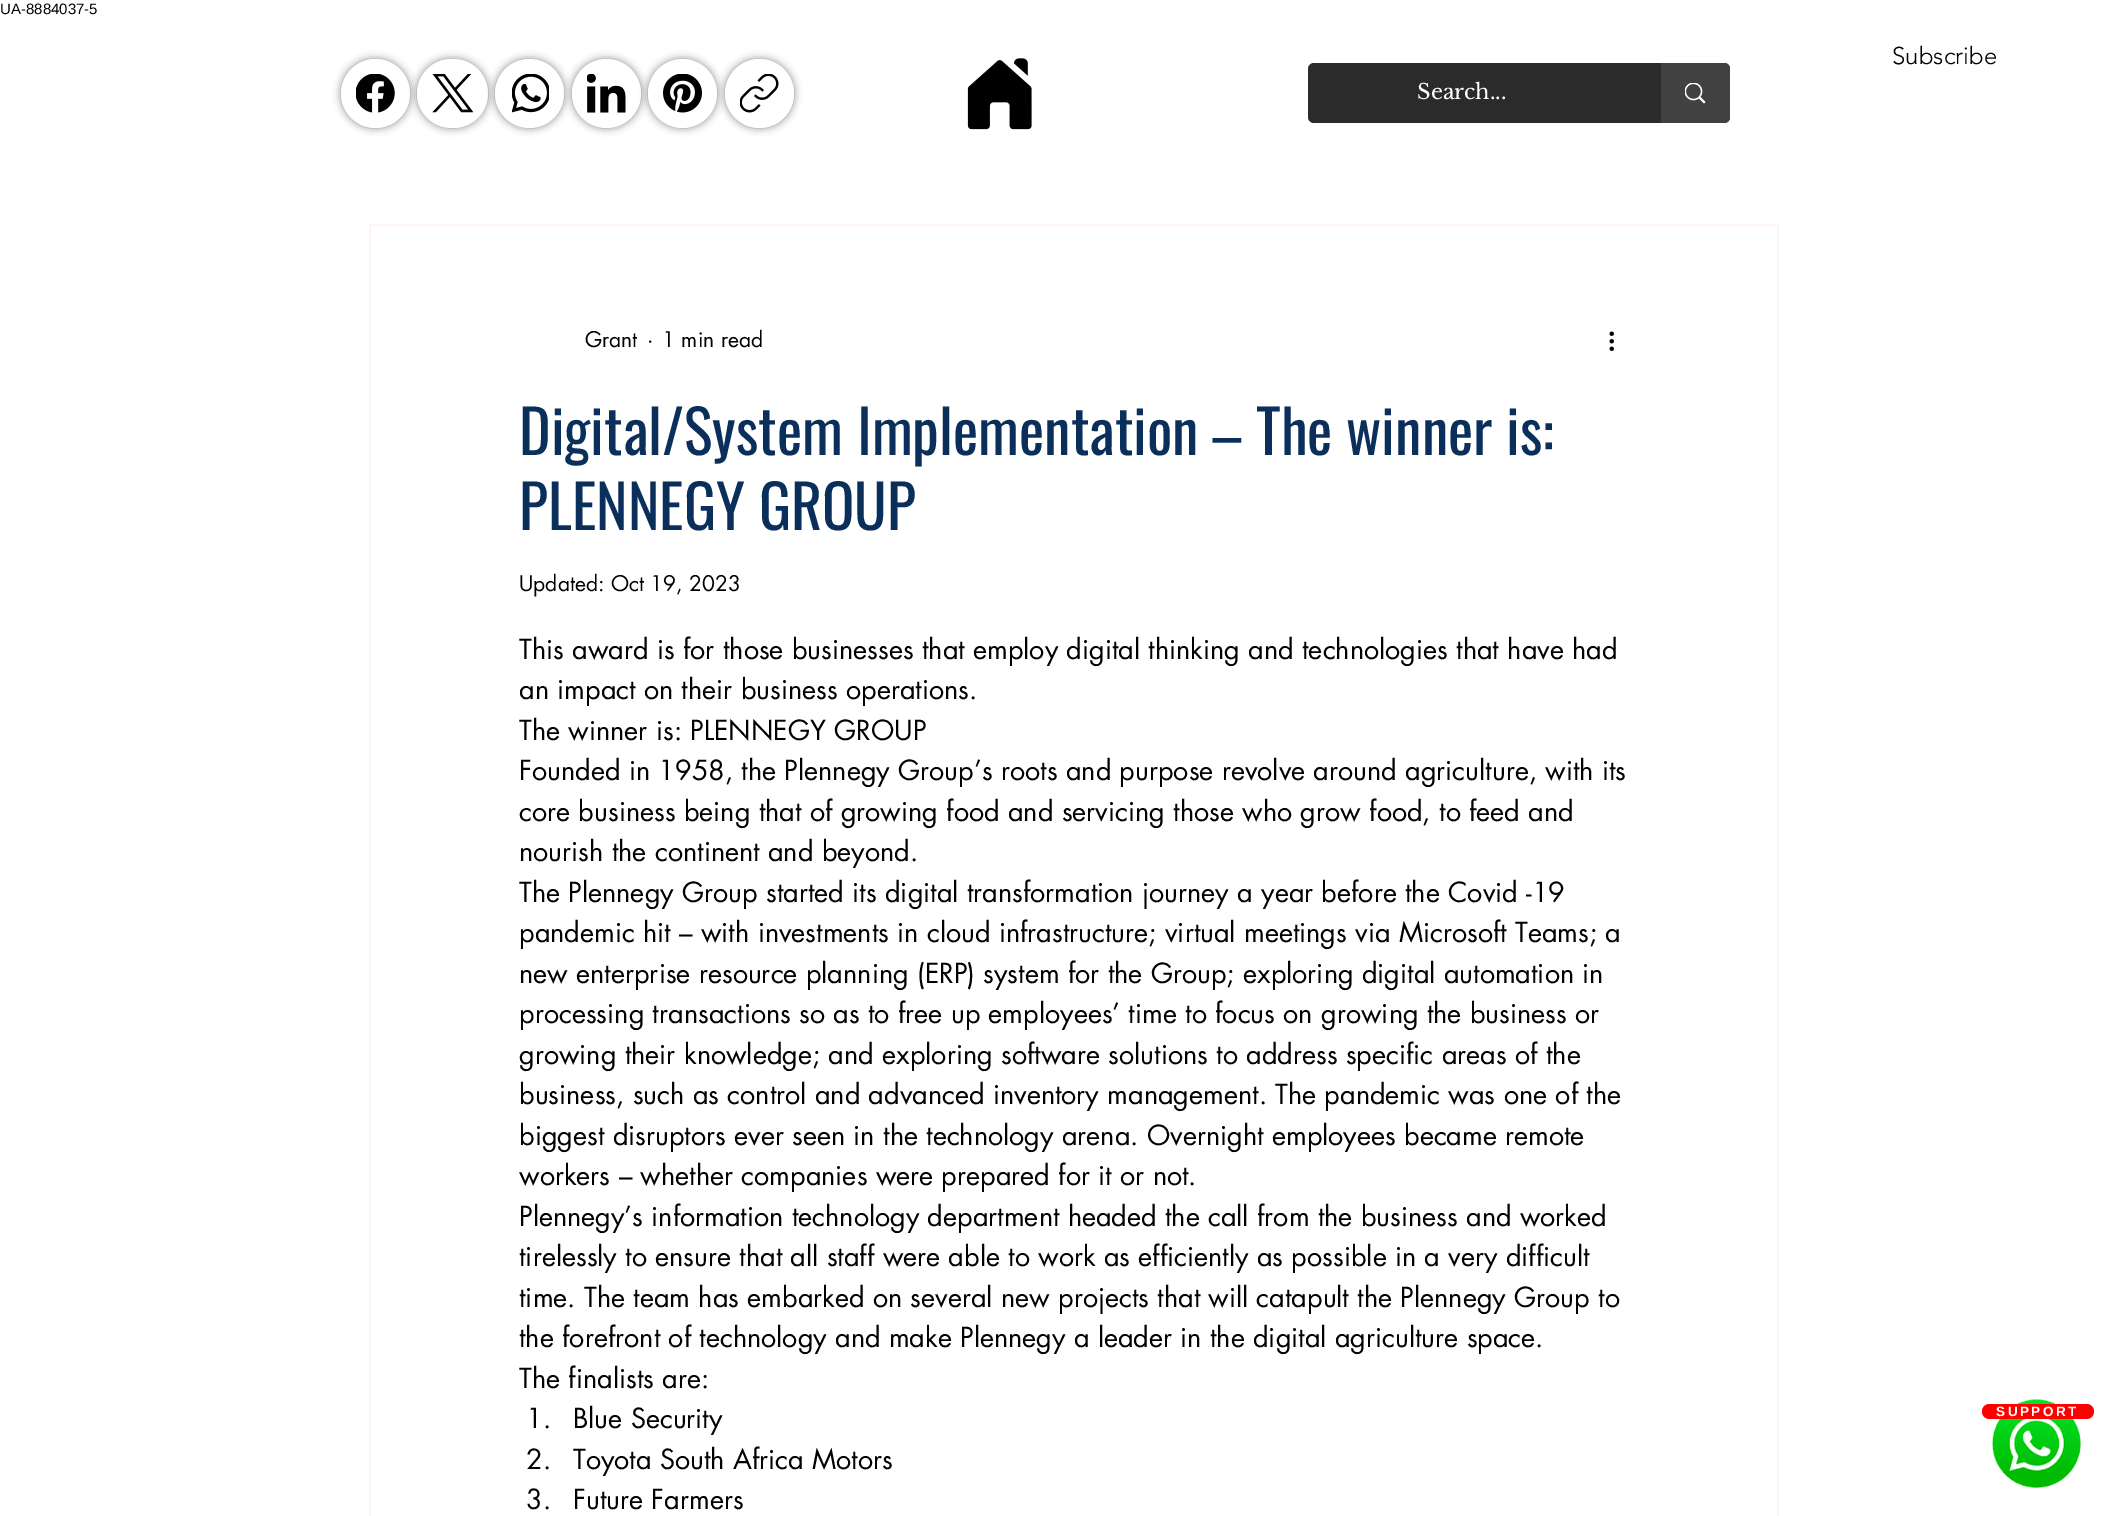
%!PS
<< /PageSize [2112 1516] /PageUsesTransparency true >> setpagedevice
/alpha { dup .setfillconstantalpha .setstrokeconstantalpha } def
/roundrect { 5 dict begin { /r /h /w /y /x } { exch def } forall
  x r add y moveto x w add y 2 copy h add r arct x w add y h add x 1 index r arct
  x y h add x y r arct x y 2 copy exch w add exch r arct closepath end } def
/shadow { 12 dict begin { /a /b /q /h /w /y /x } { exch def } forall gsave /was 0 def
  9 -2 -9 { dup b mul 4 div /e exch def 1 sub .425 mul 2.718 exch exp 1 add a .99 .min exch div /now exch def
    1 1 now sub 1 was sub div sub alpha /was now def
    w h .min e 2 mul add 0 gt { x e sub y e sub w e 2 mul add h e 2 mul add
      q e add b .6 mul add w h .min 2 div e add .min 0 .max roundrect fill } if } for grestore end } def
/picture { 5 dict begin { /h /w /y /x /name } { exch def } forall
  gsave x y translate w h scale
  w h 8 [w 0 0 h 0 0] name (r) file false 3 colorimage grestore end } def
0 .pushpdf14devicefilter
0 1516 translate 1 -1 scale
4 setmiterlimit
1 setgray
0 0 2112 1516 rectfill
/LiberationSans-Regular [15 0 0 -15 0 0] selectfont
0 setgray
0 14 moveto (UA-8884037-5) show
/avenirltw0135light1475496-Light [24 0 0 -24 0 0] selectfont
1892 64 moveto (Subscribe) show
1 0.957 0.969 setrgbcolor
2 setlinewidth
370 225 1408 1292 rectstroke
/futura-Regular [21 0 0 -21 0 0] selectfont
0 setgray
585 347 moveto (Grant) show
647 347 moveto (·) show
662 347 moveto (1 min read) show
(img1.rgb) 1609 331 5 20 picture
/Oswald-Regular [60 0 0 -60 0 0] selectfont
0.043 0.184 0.357 setrgbcolor
519 455 moveto (Digital/System Implementation – The winner is:) show
519 530 moveto (PLENNEGY GROUP) show
/futura-Regular [21 0 0 -21 0 0] selectfont
0 setgray
519 591 moveto (Updated: Oct 19, 2023) show
/futura-Regular [27 0 0 -27 0 0] selectfont
519 659 moveto (This award is for those businesses that employ digital thinking and technologies that have had) show
519 699 moveto (an impact on their business operations.) show
519 740 moveto (The winner is: PLENNEGY GROUP) show
519 780 moveto (Founded in 1958, the Plennegy Group’s roots and purpose revolve around agriculture, with its) show
519 821 moveto (core business being that of growing food and servicing those who grow food, to feed and) show
519 861 moveto (nourish the continent and beyond.) show
519 902 moveto (The Plennegy Group started its digital transformation journey a year before the Covid -19) show
519 942 moveto (pandemic hit – with investments in cloud infrastructure; virtual meetings via Microsoft Teams; a) show
519 983 moveto (new enterprise resource planning \(ERP\) system for the Group; exploring digital automation in) show
519 1023 moveto (processing transactions so as to free up employees’ time to focus on growing the business or) show
519 1064 moveto (growing their knowledge; and exploring software solutions to address specific areas of the) show
519 1104 moveto (business, such as control and advanced inventory management. The pandemic was one of the) show
519 1145 moveto (biggest disruptors ever seen in the technology arena. Overnight employees became remote) show
519 1185 moveto (workers – whether companies were prepared for it or not.) show
519 1226 moveto (Plennegy’s information technology department headed the call from the business and worked) show
519 1266 moveto (tirelessly to ensure that all staff were able to work as efficiently as possible in a very difficult) show
519 1307 moveto (time. The team has embarked on several new projects that will catapult the Plennegy Group to) show
519 1347 moveto (the forefront of technology and make Plennegy a leader in the digital agriculture space.) show
519 1388 moveto (The finalists are:) show
526 1428 moveto (1.) show
573 1428 moveto (Blue Security) show
526 1469 moveto (2.) show
573 1469 moveto (Toyota South Africa Motors) show
526 1509 moveto (3.) show
573 1509 moveto (Future Farmers) show
341 59 69 69 34.5 4 0.45 shadow
1 setgray
newpath 375.5 93.5 34.5 0 360 arc closepath fill
(img2.rgb) 356 74 39 39 picture
0 setgray
417 59 71 69 34.5 4 0.45 shadow
1 setgray
417 59 71 69 34.5 roundrect fill
(img3.rgb) 432 74 41 39 picture
0 setgray
495 59 69 69 34.5 4 0.45 shadow
1 setgray
newpath 529.5 93.5 34.5 0 360 arc closepath fill
(img4.rgb) 512 74 37 39 picture
0 setgray
572 59 69 69 34.5 4 0.45 shadow
1 setgray
newpath 606.5 93.5 34.5 0 360 arc closepath fill
(img5.rgb) 587 74 39 39 picture
0 setgray
648 59 69 69 34.5 4 0.45 shadow
1 setgray
newpath 682.5 93.5 34.5 0 360 arc closepath fill
(img6.rgb) 663 74 39 39 picture
0 setgray
725 59 69 69 34.5 4 0.45 shadow
1 setgray
newpath 759.5 93.5 34.5 0 360 arc closepath fill
(img7.rgb) 740 74 39 39 picture
(img8.rgb) 967 58 65 72 picture
0.169 setgray
1308 63 422 60 6 roundrect fill
/LibreBaskerville-Regular [21 0 0 -21 0 0] selectfont
1 setgray
1417 99 moveto (Search...) show
0.255 setgray
newpath 1661 63 moveto 1724 63 lineto 1727.5 63 1730 65.5 1730 69 curveto 1730 117 lineto 1730 120.5 1727.5 123 1724 123 curveto 1661 123 lineto closepath fill
(img9.rgb) 1685 83 21 21 picture
(img10.rgb) 1992 1399 89 89 picture
1 0 0 setrgbcolor
1982 1404 112 15 7.5 roundrect fill
/LiberationSans-Bold [13.5 0 0 -13.5 0 0] selectfont
1 setgray
1996 1416 moveto 2.5 0 (SUPPORT) ashow
.poppdf14devicefilter showpage
